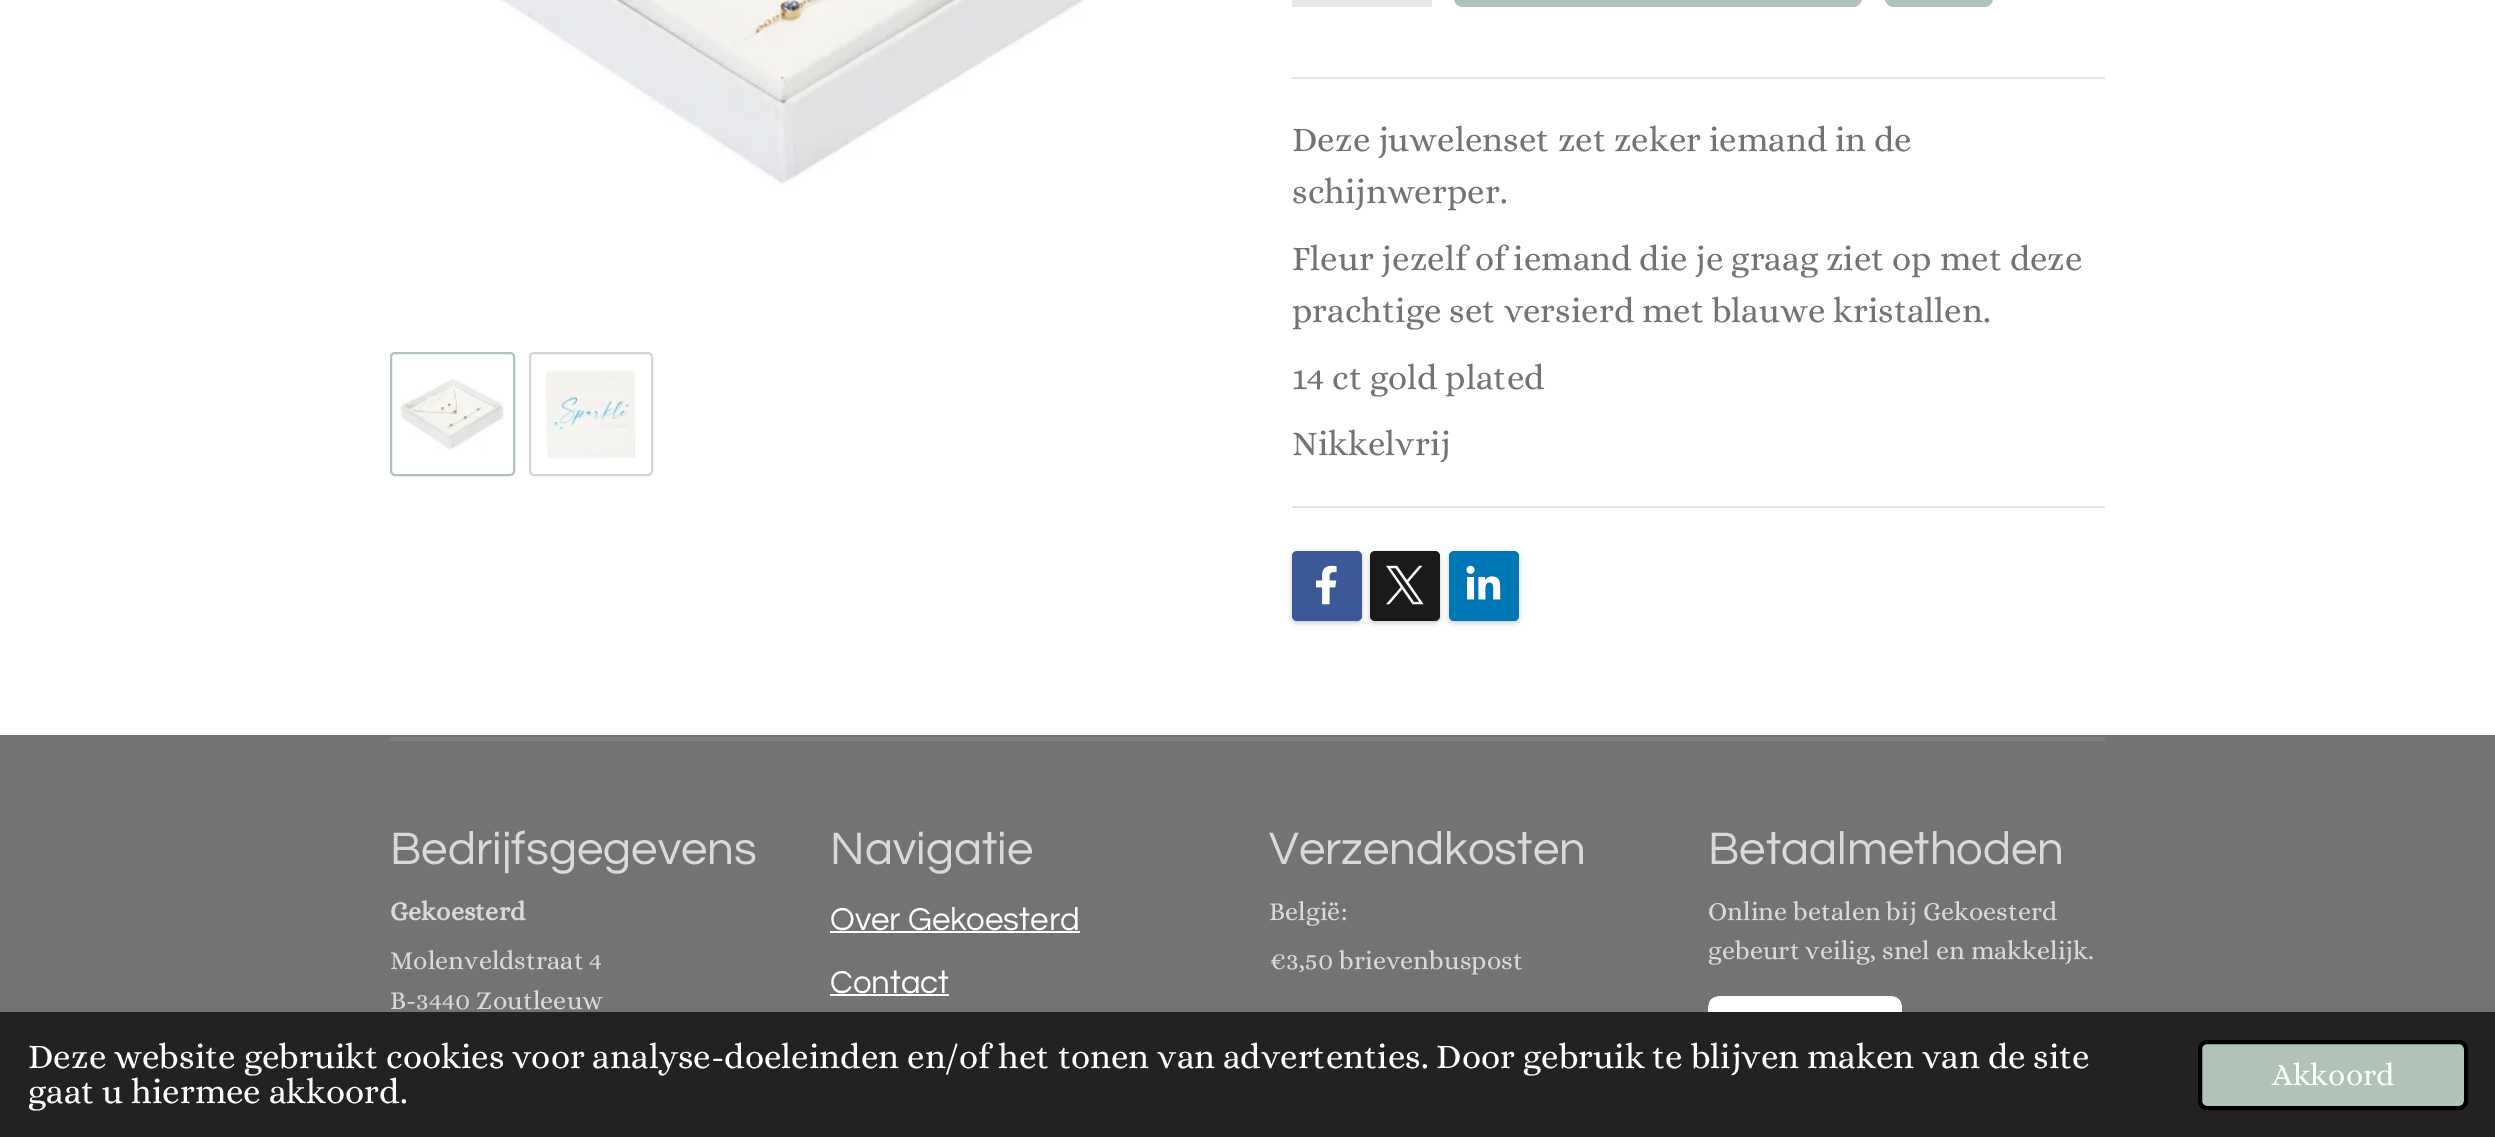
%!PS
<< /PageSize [2495 1137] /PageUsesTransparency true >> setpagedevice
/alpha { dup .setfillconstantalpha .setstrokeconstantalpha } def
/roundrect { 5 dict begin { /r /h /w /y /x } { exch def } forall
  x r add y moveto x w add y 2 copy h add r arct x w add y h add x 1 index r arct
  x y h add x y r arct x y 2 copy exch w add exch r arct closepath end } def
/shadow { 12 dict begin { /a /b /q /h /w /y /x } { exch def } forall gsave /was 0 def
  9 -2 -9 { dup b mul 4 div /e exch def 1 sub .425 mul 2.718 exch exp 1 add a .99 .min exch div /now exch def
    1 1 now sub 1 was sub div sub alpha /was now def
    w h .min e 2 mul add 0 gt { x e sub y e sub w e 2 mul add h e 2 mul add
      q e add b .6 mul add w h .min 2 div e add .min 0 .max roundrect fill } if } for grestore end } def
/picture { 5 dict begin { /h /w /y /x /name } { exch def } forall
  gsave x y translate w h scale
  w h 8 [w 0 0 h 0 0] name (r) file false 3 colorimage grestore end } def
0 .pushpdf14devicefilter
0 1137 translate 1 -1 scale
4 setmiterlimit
1 setgray
0 0 2495 1137 rectfill
(img1.rgb) 500 0 586 185 picture
0.694 0.765 0.722 setrgbcolor
2 setlinewidth
391 353 123 122 4 roundrect stroke
(img2.rgb) 400 379 104 71 picture
0.835 setgray
530 353 122 122 4 roundrect stroke
(img3.rgb) 546 369 91 90 picture
0.902 setgray
1292 0 140 7 rectfill
0.694 0.765 0.722 setrgbcolor
1454 -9 408 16 9 roundrect fill
1885 -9 108 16 9 roundrect fill
0.89 setgray
1292 77 813 2 rectfill
/Alice-Regular [35 0 0 -35 0 0] selectfont
0.451 setgray
1292 151 moveto (Deze juwelenset zet zeker iemand in de) show
1292 203 moveto (schijnwerper.) show
1292 270 moveto (Fleur jezelf of iemand die je graag ziet op met deze) show
1292 322 moveto (prachtige set versierd met blauwe kristallen.) show
1292 389 moveto (14 ct gold plated) show
1292 455 moveto (Nikkelvrij) show
0.89 setgray
1292 506 813 2 rectfill
0 setgray
1292 553 70 70 5 2.5 0.2 shadow
0.231 0.349 0.596 setrgbcolor
1292 551 70 70 5 roundrect fill
(img4.rgb) 1316 565 21 40 picture
0 setgray
1370 553 70 70 5 2.5 0.2 shadow
0.102 setgray
1370 551 70 70 5 roundrect fill
(img5.rgb) 1386 565 38 40 picture
0 setgray
1449 553 70 70 5 2.5 0.2 shadow
0 0.467 0.71 setrgbcolor
1449 551 70 70 5 roundrect fill
(img6.rgb) 1466 565 35 35 picture
0.451 setgray
0 735 2495 277 rectfill
0.486 0.498 0.49 setrgbcolor
390 737 1715 4 rectfill
/Questrial-Regular [47.25 0 0 -47.25 0 0] selectfont
0.851 setgray
390 864 moveto (Bedrijfsgegevens) show
/Alice-Bold [26.25 0 0 -26.25 0 0] selectfont
390 920 moveto (Gekoesterd) show
/Alice-Regular [26.25 0 0 -26.25 0 0] selectfont
390 969 moveto (Molenveldstraat 4) show
390 1009 moveto (B-3440 Zoutleeuw) show
/Questrial-Regular [47.25 0 0 -47.25 0 0] selectfont
830 864 moveto (Navigatie) show
/Questrial-Regular [33 0 0 -33 0 0] selectfont
1 setgray
830 930 moveto (Over Gekoesterd) show
830 931 250 2 rectfill
830 993 moveto (Contact) show
830 994 119 2 rectfill
/Questrial-Regular [47.25 0 0 -47.25 0 0] selectfont
0.851 setgray
1269 864 moveto (Verzendkosten) show
/Alice-Regular [26.25 0 0 -26.25 0 0] selectfont
1269 920 moveto (België:) show
1269 969 moveto (€3,50 brievenbuspost) show
/Questrial-Regular [47.25 0 0 -47.25 0 0] selectfont
1708 864 moveto (Betaalmethoden) show
/Alice-Regular [26.25 0 0 -26.25 0 0] selectfont
1708 920 moveto (Online betalen bij Gekoesterd) show
1708 959 moveto (gebeurt veilig, snel en makkelijk.) show
(img7.rgb) 1708 996 194 16 picture
0.133 setgray
0 1012 2495 125 rectfill
/Alice-Regular [35 0 0 -35 0 0] selectfont
1 setgray
28 1068 moveto (Deze website gebruikt cookies voor analyse-doeleinden en/of het tonen van advertenties. Door gebruik te blijven maken van de site) show
28 1103 moveto (gaat u hiermee akkoord.) show
0.694 0.765 0.722 setrgbcolor
2200 1042 266 66 7 roundrect gsave fill grestore
0 setgray
4 setlinewidth
stroke
/Alice-Regular [31.5 0 0 -31.5 0 0] selectfont
1 setgray
2272 1085 moveto (Akkoord) show
.poppdf14devicefilter showpage
